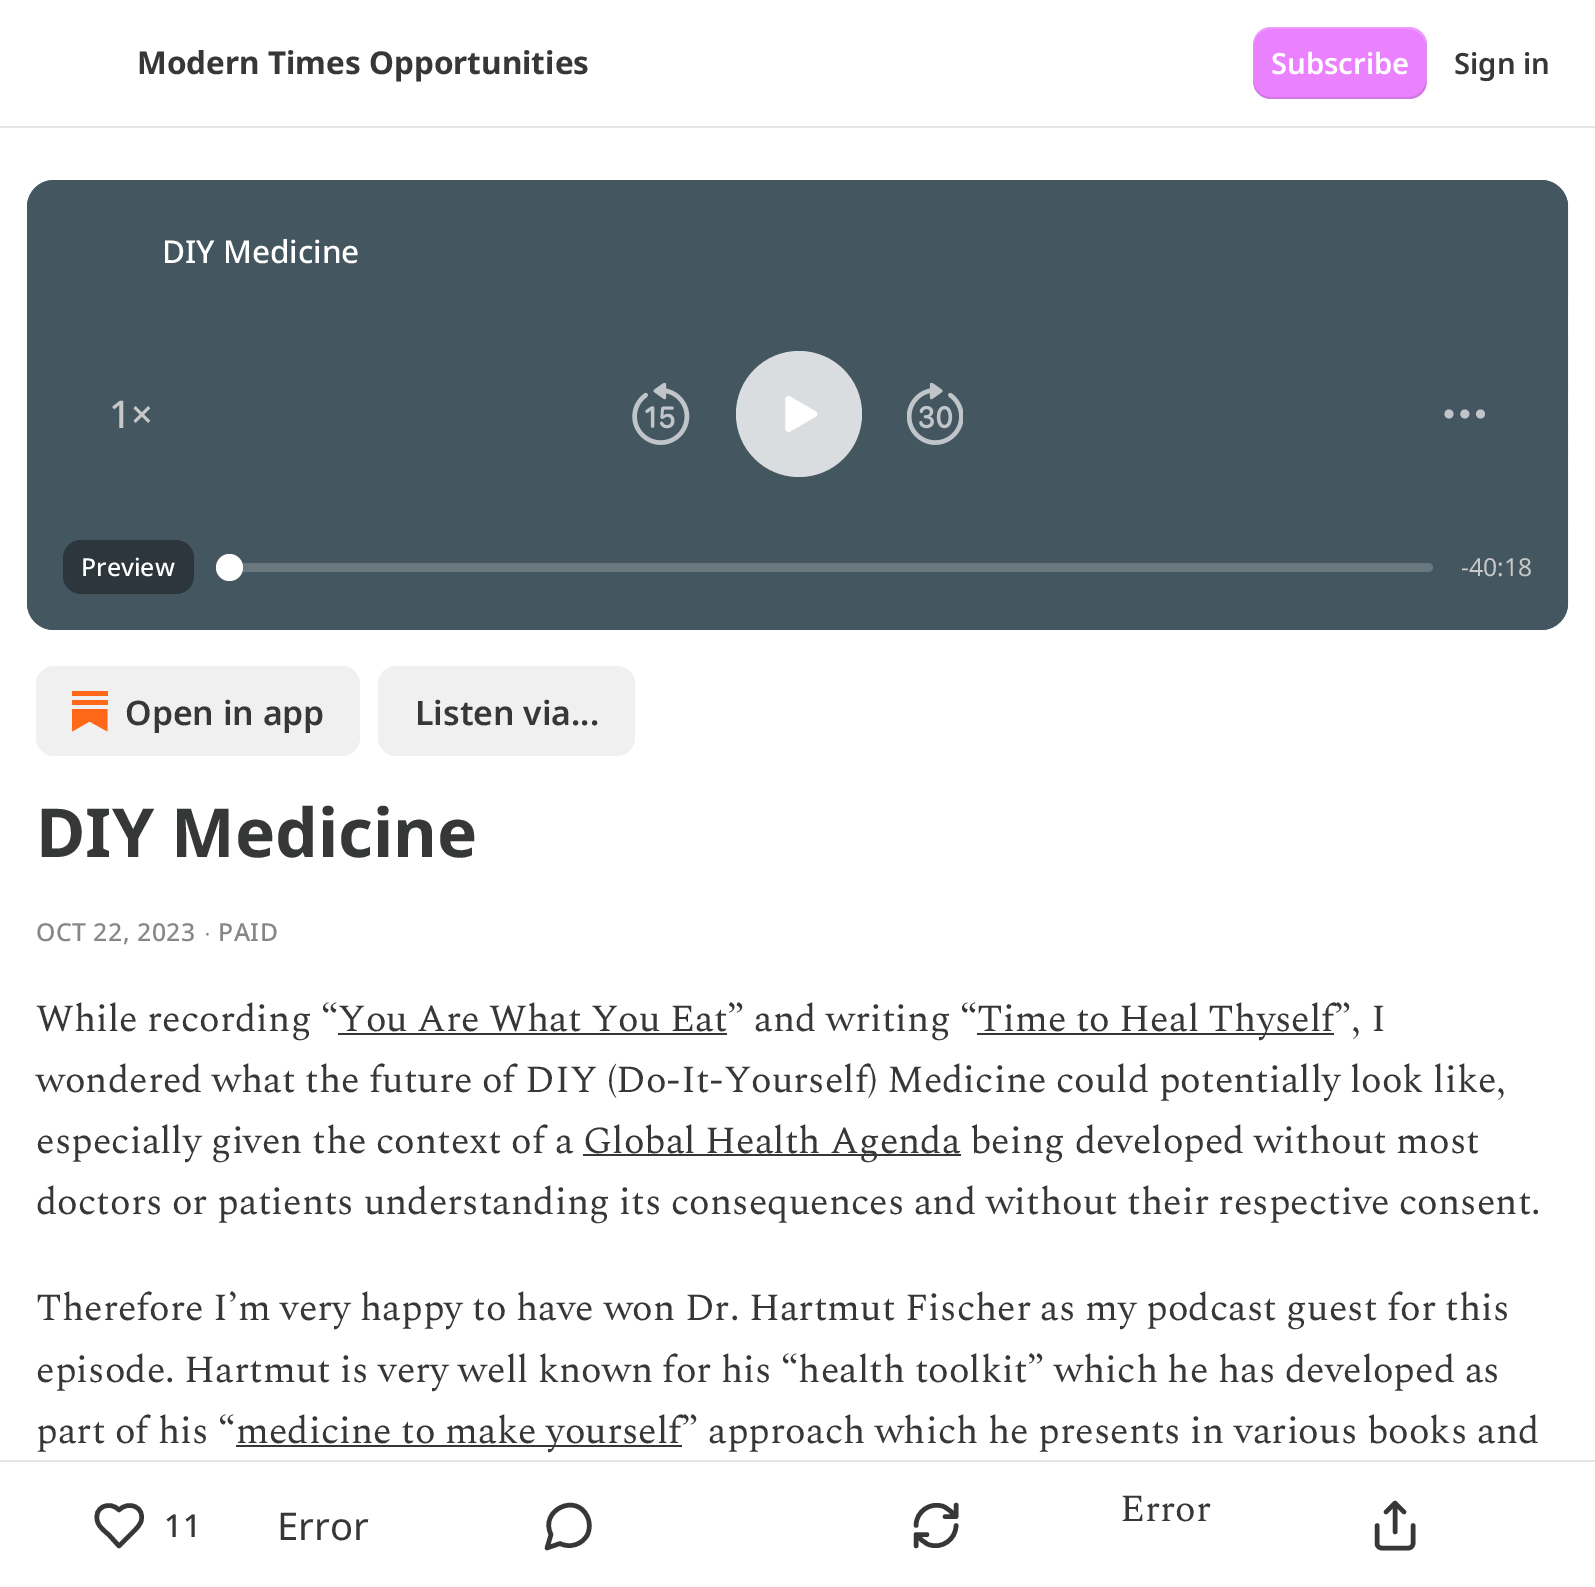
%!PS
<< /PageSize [1595 1587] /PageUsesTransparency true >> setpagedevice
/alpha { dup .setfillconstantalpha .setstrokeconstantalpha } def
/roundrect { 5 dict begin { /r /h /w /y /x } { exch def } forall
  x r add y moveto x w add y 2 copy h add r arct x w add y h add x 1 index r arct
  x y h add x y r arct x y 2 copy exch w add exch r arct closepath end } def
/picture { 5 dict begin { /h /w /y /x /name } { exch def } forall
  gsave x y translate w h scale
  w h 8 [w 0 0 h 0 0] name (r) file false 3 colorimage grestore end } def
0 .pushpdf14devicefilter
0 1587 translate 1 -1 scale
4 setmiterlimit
1 setgray
0 0 1595 1587 rectfill
0.902 setgray
0 126 1595 2 rectfill
/NotoSans-Bold [31.5 0 0 -31.5 0 0] selectfont
0.212 0.216 0.216 setrgbcolor
137 74 moveto (Modern Times Opportunities) show
0.918 0.51 1 setrgbcolor
1253 27 174 72 18 roundrect fill
0.1 alpha
0 setgray
newpath 1253 79 moveto 1253 81 lineto 1253 91 1261 99 1271 99 curveto 1409 99 lineto 1419 99 1427 91 1427 81 curveto 1427 45 lineto 1427 42 1426 39 1425 36 curveto 1426 38 1426 41 1426 43 curveto 1426 79 lineto 1426 89 1418 97 1408 97 curveto 1271 97 lineto 1261 97 1253 89 1253 79 curveto closepath fill
0.2 alpha
1 setgray
newpath 1271 29 moveto 1408 29 lineto 1418 29 1426 37 1426 47 curveto 1426 83 lineto 1426 85 1426 88 1425 90 curveto 1426 87 1427 84 1427 81 curveto 1427 45 lineto 1427 35 1419 27 1409 27 curveto 1271 27 lineto 1261 27 1253 35 1253 45 curveto 1253 47 lineto 1253 37 1261 29 1271 29 curveto closepath fill
/NotoSans-SemiBold [29.25 0 0 -29.25 0 0] selectfont
1 alpha
1271 74 moveto (Subscribe) show
0.212 0.216 0.216 setrgbcolor
1454 74 moveto (Sign in) show
(img1.rgb) 27 180 1542 450 picture
0.659 setgray
27 180 1541 450 27 roundrect fill
0.75 alpha
0.133 0.227 0.278 setrgbcolor
27 180 1541 450 27 roundrect fill
/NotoSans-Medium [31.5 0 0 -31.5 0 0] selectfont
1 alpha
1 setgray
162 263 moveto (DIY Medicine) show
/NotoSans-Medium [38.25 0 0 -38.25 0 0] selectfont
0.784 setgray
109 428 moveto (1×) show
(img2.rgb) 632 383 58 62 picture
0.855 0.867 0.875 setrgbcolor
newpath 799 414 63 0 360 arc closepath fill
(img3.rgb) 785 396 33 36 picture
(img4.rgb) 907 383 56 62 picture
0.749 0.773 0.788 setrgbcolor
4.5 setlinewidth
newpath 1464.8 414 2.2 0 360 arc closepath stroke
newpath 1480.5 414 2.2 0 360 arc closepath stroke
newpath 1449 414 2.2 0 360 arc closepath stroke
0.176 0.212 0.235 setrgbcolor
63 540 131 54 18 roundrect fill
/NotoSans-Medium [24.75 0 0 -24.75 0 0] selectfont
1 setgray
81 576 moveto (Preview) show
0.412 0.467 0.498 setrgbcolor
230 563 1203 9 4.5 roundrect fill
1 setgray
newpath 229.5 567.5 13.5 0 360 arc closepath fill
/NotoSans-Regular [24.75 0 0 -24.75 0 0] selectfont
0.784 setgray
1461 576 moveto (-40:18) show
0.941 setgray
36 666 324 90 18 roundrect fill
1 0.404 0.098 setrgbcolor
72 700 36 5 rectfill
newpath 72 709 moveto 72 731.5 lineto 89.5 721.5 lineto 107.5 731.5 lineto 107.5 709 lineto closepath fill
72 691 36 5 rectfill
/NotoSans-SemiBold [33.75 0 0 -33.75 0 0] selectfont
0.212 0.216 0.216 setrgbcolor
125 725 moveto (Open in app) show
0.941 setgray
378 666 257 90 18 roundrect fill
0.212 0.216 0.216 setrgbcolor
415 725 moveto (Listen via...) show
/NotoSans-Bold [67.5 0 0 -67.5 0 0] selectfont
36 857 moveto (DIY Medicine) show
/NotoSans-Medium [24.75 0 0 -24.75 0 0] selectfont
0.525 0.529 0.529 setrgbcolor
36 941 moveto 0.5 0 (OCT 22, 2023) ashow
/LiberationSans-Regular [24.75 0 0 -24.75 0 0] selectfont
204 941 moveto 0.5 0 (∙) ashow
/NotoSans-Medium [24.75 0 0 -24.75 0 0] selectfont
218 941 moveto 0.5 0 (PAID) ashow
/Spectral-Regular [38.25 0 0 -38.25 0 0] selectfont
0.212 0.216 0.216 setrgbcolor
36 1031 moveto (While recording “You Are What You Eat” and writing “) show
977 1033 357 2 rectfill
977 1031 moveto (Time to Heal Thyself”, I) show
338 1033 389 2 rectfill
36 1092 moveto (wondered what the future of DIY \(Do-It-Yourself\) Medicine could potentially look like,) show
36 1153 moveto (especially given the context of a) show
583 1154 378 2 rectfill
583 1153 moveto (Global Health Agenda being developed without most) show
36 1214 moveto (doctors or patients understanding its consequences and without their respective consent.) show
36 1320 moveto (Therefore I’m very happy to have won Dr. Hartmut Fischer as my podcast guest for this) show
36 1382 moveto (episode. Hartmut is very well known for his “health toolkit” which he has developed as) show
36 1443 moveto (part of his “) show
236 1445 446 2 rectfill
236 1443 moveto (medicine to make yourself” approach which he presents in various books and) show
0.902 setgray
0 1460 1595 2 rectfill
0.212 0.216 0.216 setrgbcolor
1 setlinecap
1 setlinejoin
newpath 135 1530 moveto 137.5 1527.5 140 1524.5 141 1521.5 curveto 145.5 1507.5 129 1500 119 1510 curveto 109.5 1500 93 1507.5 97.5 1521.5 curveto 99 1527 104.5 1531 109 1535 curveto 119 1546 lineto closepath stroke
/NotoSans-Medium [31.5 0 0 -31.5 0 0] selectfont
164 1537 moveto 1 0 (11) ashow
/NotoSans-Regular [38.25 0 0 -38.25 0 0] selectfont
277 1540 moveto (Error) show
newpath 560 1543.5 moveto 570 1548.5 582.5 1544.5 587.5 1534.5 curveto 590 1529 590 1522.5 587.5 1517 curveto 576.5 1492 539 1510.5 551 1534.5 curveto 547 1548 lineto closepath stroke
newpath 956 1505 moveto 956 1516.5 lineto 956 1516.5 moveto 945 1516.5 lineto 956 1516.5 moveto 952.5 1513 948.5 1508.5 943.5 1506.5 curveto 930.5 1501.5 916 1511.5 916 1525.5 curveto 916 1546 moveto 916 1534.5 lineto 916 1534.5 moveto 927 1534.5 lineto 916 1534.5 moveto 919.5 1538 923.5 1542.5 928.5 1544.5 curveto 941.5 1549.5 956 1539.5 956 1525.5 curveto stroke
/Spectral-Regular [38.25 0 0 -38.25 0 0] selectfont
1120 1521 moveto (Error) show
newpath 1377 1525.5 moveto 1377 1543.5 lineto 1377 1546 1379 1548 1381.5 1548 curveto 1408.5 1548 lineto 1411 1548 1413 1546 1413 1543.5 curveto 1413 1525.5 lineto 1404 1512 moveto 1395 1503 lineto 1386 1512 lineto 1395 1503 moveto 1395 1532 lineto stroke
.poppdf14devicefilter showpage
